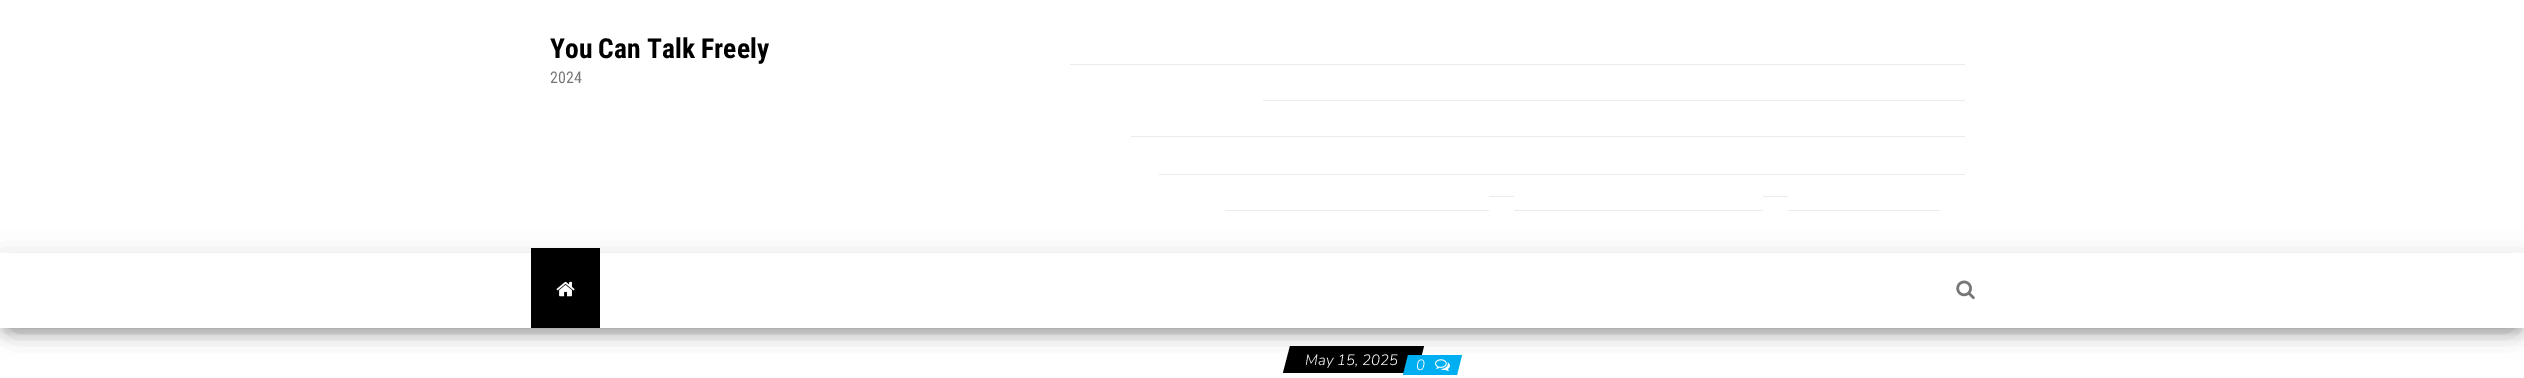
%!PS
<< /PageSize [2524 378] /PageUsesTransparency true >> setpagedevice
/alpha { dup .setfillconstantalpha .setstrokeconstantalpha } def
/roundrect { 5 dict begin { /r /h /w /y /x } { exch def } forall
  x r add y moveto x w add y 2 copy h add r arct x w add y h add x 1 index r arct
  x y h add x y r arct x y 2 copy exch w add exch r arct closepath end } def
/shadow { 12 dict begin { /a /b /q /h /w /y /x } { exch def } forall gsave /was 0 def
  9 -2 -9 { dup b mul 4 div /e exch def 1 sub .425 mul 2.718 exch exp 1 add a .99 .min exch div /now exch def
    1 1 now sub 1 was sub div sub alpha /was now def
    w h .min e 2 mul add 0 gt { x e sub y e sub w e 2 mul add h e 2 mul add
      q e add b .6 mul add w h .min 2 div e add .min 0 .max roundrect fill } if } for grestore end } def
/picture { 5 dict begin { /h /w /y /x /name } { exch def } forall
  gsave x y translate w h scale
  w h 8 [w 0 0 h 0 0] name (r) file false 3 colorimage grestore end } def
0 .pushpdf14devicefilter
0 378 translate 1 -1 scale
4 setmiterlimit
1 setgray
0 0 2524 378 rectfill
/RobotoCondensed-Bold [27.5 0 0 -27.5 0 0] selectfont
0 setgray
550 58 moveto (You Can Talk Freely) show
/RobotoCondensed-Regular [16 0 0 -16 0 0] selectfont
0.467 setgray
550 83 moveto (2024) show
0.922 setgray
1070 64 895 1 rectfill
1263 100 702 1 rectfill
1131 136 834 1 rectfill
1159 174 806 1 rectfill
1489 196 25 1 rectfill
1763 196 25 1 rectfill
1225 210 264 1 rectfill
1514 210 249 1 rectfill
1788 210 152 1 rectfill
0 setgray
6 269 2513 62 0 6 0.2 shadow
0 256 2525 75 0 12.5 0.12 shadow
15 280 2495 45 0 12.5 0.42 shadow
1 setgray
0 253 2524 75 rectfill
0 setgray
531 248 69 80 rectfill
(img1.rgb) 556 281 19 16 picture
(img2.rgb) 1956 280 19 20 picture
newpath 1290 346 moveto 1424 346 lineto 1417 373 lineto 1283 373 lineto closepath fill
/Nunito-LightItalic [15 0 0 -15 0 0] selectfont
1 setgray
1305 365 moveto (May 15, 2025) show
0 0.686 0.949 setrgbcolor
newpath 1408 355 moveto 1462 355 lineto 1457 375 lineto 1403 375 lineto closepath fill
1 setgray
1416 370 moveto (0) show
(img3.rgb) 1435 359 15 12 picture
.poppdf14devicefilter showpage
